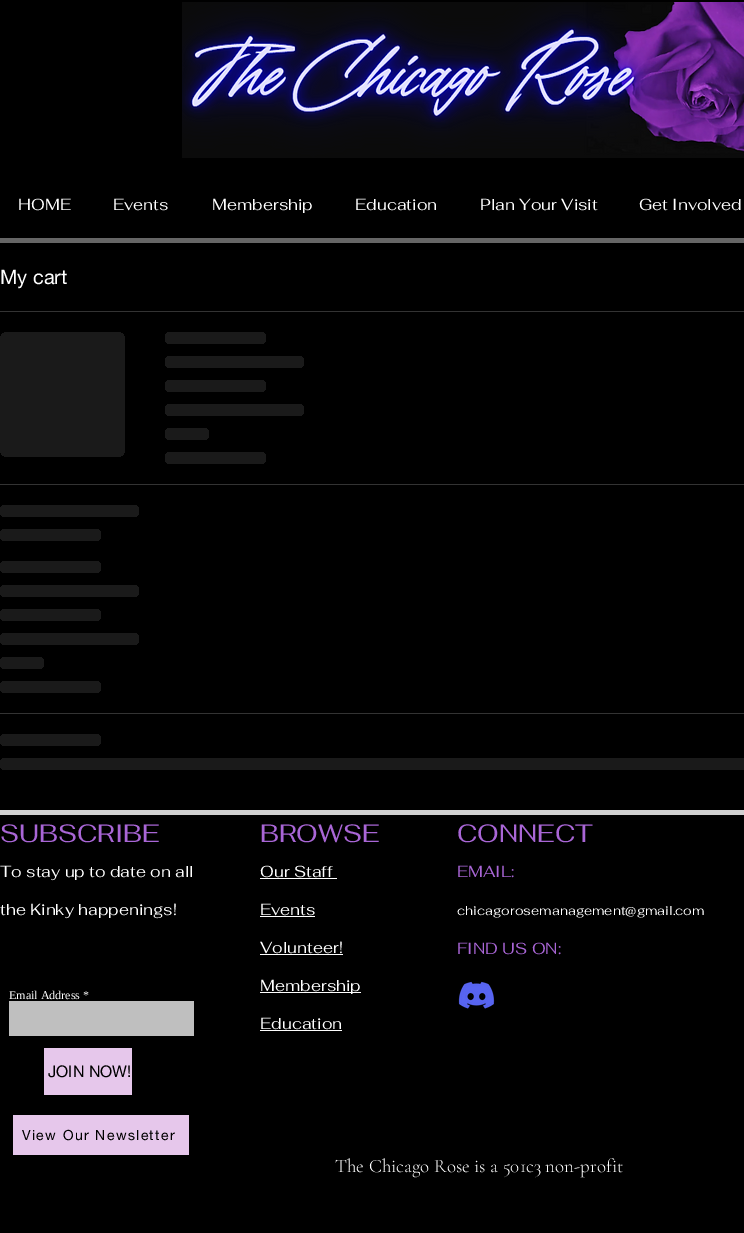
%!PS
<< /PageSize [744 1233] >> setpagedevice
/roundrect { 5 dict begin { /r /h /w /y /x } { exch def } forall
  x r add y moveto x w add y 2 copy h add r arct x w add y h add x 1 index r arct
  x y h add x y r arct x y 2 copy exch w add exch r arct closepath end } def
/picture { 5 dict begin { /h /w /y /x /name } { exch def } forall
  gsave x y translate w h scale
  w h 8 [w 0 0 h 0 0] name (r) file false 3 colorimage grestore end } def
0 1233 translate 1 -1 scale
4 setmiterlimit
0 setgray
0 0 744 1233 rectfill
(img1.rgb) 182 2 562 156 picture
/Fahkwang-Regular [16 0 0 -16 0 0] selectfont
1 setgray
18 210 moveto (HOME) show
113 210 moveto (Events) show
212 210 moveto (Membership) show
355 210 moveto (Education) show
480 210 moveto (Plan Your Visit) show
639 210 moveto (Get Involved) show
0.4 setgray
0 238 744 5 rectfill
0.2 setgray
0 311 744 1 rectfill
/helveticaneue-Regular [20 0 0 -20 0 0] selectfont
1 setgray
0 284 moveto (My cart) show
gsave 0 332 125 125 8 roundrect clip newpath
<< /ShadingType 2 /ColorSpace /DeviceRGB /Coords [0 395 500 395] /Extend [true true] /Function << /FunctionType 3 /Domain [0 1] /Functions [<< /FunctionType 2 /Domain [0 1] /C0 [0.102 0.102 0.102] /C1 [0.102 0.102 0.102] /N 1 >> << /FunctionType 2 /Domain [0 1] /C0 [0.102 0.102 0.102] /C1 [0.2 0.2 0.2] /N 1 >> << /FunctionType 2 /Domain [0 1] /C0 [0.2 0.2 0.2] /C1 [0.102 0.102 0.102] /N 1 >> << /FunctionType 2 /Domain [0 1] /C0 [0.102 0.102 0.102] /C1 [0.102 0.102 0.102] /N 1 >>] /Bounds [0.25 0.37 0.63] /Encode [0 1 0 1 0 1 0 1] >> >> shfill grestore
gsave 165 332 101 12 6 roundrect clip newpath
<< /ShadingType 2 /ColorSpace /DeviceRGB /Coords [165 338 569 338] /Extend [true true] /Function << /FunctionType 3 /Domain [0 1] /Functions [<< /FunctionType 2 /Domain [0 1] /C0 [0.102 0.102 0.102] /C1 [0.102 0.102 0.102] /N 1 >> << /FunctionType 2 /Domain [0 1] /C0 [0.102 0.102 0.102] /C1 [0.2 0.2 0.2] /N 1 >> << /FunctionType 2 /Domain [0 1] /C0 [0.2 0.2 0.2] /C1 [0.102 0.102 0.102] /N 1 >> << /FunctionType 2 /Domain [0 1] /C0 [0.102 0.102 0.102] /C1 [0.102 0.102 0.102] /N 1 >>] /Bounds [0.25 0.37 0.63] /Encode [0 1 0 1 0 1 0 1] >> >> shfill grestore
gsave 165 356 139 12 6 roundrect clip newpath
<< /ShadingType 2 /ColorSpace /DeviceRGB /Coords [165 362 721 362] /Extend [true true] /Function << /FunctionType 3 /Domain [0 1] /Functions [<< /FunctionType 2 /Domain [0 1] /C0 [0.102 0.102 0.102] /C1 [0.102 0.102 0.102] /N 1 >> << /FunctionType 2 /Domain [0 1] /C0 [0.102 0.102 0.102] /C1 [0.2 0.2 0.2] /N 1 >> << /FunctionType 2 /Domain [0 1] /C0 [0.2 0.2 0.2] /C1 [0.102 0.102 0.102] /N 1 >> << /FunctionType 2 /Domain [0 1] /C0 [0.102 0.102 0.102] /C1 [0.102 0.102 0.102] /N 1 >>] /Bounds [0.25 0.37 0.63] /Encode [0 1 0 1 0 1 0 1] >> >> shfill grestore
gsave 165 380 101 12 6 roundrect clip newpath
<< /ShadingType 2 /ColorSpace /DeviceRGB /Coords [165 386 569 386] /Extend [true true] /Function << /FunctionType 3 /Domain [0 1] /Functions [<< /FunctionType 2 /Domain [0 1] /C0 [0.102 0.102 0.102] /C1 [0.102 0.102 0.102] /N 1 >> << /FunctionType 2 /Domain [0 1] /C0 [0.102 0.102 0.102] /C1 [0.2 0.2 0.2] /N 1 >> << /FunctionType 2 /Domain [0 1] /C0 [0.2 0.2 0.2] /C1 [0.102 0.102 0.102] /N 1 >> << /FunctionType 2 /Domain [0 1] /C0 [0.102 0.102 0.102] /C1 [0.102 0.102 0.102] /N 1 >>] /Bounds [0.25 0.37 0.63] /Encode [0 1 0 1 0 1 0 1] >> >> shfill grestore
gsave 165 404 139 12 6 roundrect clip newpath
<< /ShadingType 2 /ColorSpace /DeviceRGB /Coords [165 410 721 410] /Extend [true true] /Function << /FunctionType 3 /Domain [0 1] /Functions [<< /FunctionType 2 /Domain [0 1] /C0 [0.102 0.102 0.102] /C1 [0.102 0.102 0.102] /N 1 >> << /FunctionType 2 /Domain [0 1] /C0 [0.102 0.102 0.102] /C1 [0.2 0.2 0.2] /N 1 >> << /FunctionType 2 /Domain [0 1] /C0 [0.2 0.2 0.2] /C1 [0.102 0.102 0.102] /N 1 >> << /FunctionType 2 /Domain [0 1] /C0 [0.102 0.102 0.102] /C1 [0.102 0.102 0.102] /N 1 >>] /Bounds [0.25 0.37 0.63] /Encode [0 1 0 1 0 1 0 1] >> >> shfill grestore
gsave 165 428 44 12 6 roundrect clip newpath
<< /ShadingType 2 /ColorSpace /DeviceRGB /Coords [165 434 341 434] /Extend [true true] /Function << /FunctionType 3 /Domain [0 1] /Functions [<< /FunctionType 2 /Domain [0 1] /C0 [0.102 0.102 0.102] /C1 [0.102 0.102 0.102] /N 1 >> << /FunctionType 2 /Domain [0 1] /C0 [0.102 0.102 0.102] /C1 [0.2 0.2 0.2] /N 1 >> << /FunctionType 2 /Domain [0 1] /C0 [0.2 0.2 0.2] /C1 [0.102 0.102 0.102] /N 1 >> << /FunctionType 2 /Domain [0 1] /C0 [0.102 0.102 0.102] /C1 [0.102 0.102 0.102] /N 1 >>] /Bounds [0.25 0.37 0.63] /Encode [0 1 0 1 0 1 0 1] >> >> shfill grestore
gsave 165 452 101 12 6 roundrect clip newpath
<< /ShadingType 2 /ColorSpace /DeviceRGB /Coords [165 458 569 458] /Extend [true true] /Function << /FunctionType 3 /Domain [0 1] /Functions [<< /FunctionType 2 /Domain [0 1] /C0 [0.102 0.102 0.102] /C1 [0.102 0.102 0.102] /N 1 >> << /FunctionType 2 /Domain [0 1] /C0 [0.102 0.102 0.102] /C1 [0.2 0.2 0.2] /N 1 >> << /FunctionType 2 /Domain [0 1] /C0 [0.2 0.2 0.2] /C1 [0.102 0.102 0.102] /N 1 >> << /FunctionType 2 /Domain [0 1] /C0 [0.102 0.102 0.102] /C1 [0.102 0.102 0.102] /N 1 >>] /Bounds [0.25 0.37 0.63] /Encode [0 1 0 1 0 1 0 1] >> >> shfill grestore
0.2 setgray
0 484 744 1 rectfill
gsave 0 505 139 12 6 roundrect clip newpath
<< /ShadingType 2 /ColorSpace /DeviceRGB /Coords [0 511 556 511] /Extend [true true] /Function << /FunctionType 3 /Domain [0 1] /Functions [<< /FunctionType 2 /Domain [0 1] /C0 [0.102 0.102 0.102] /C1 [0.102 0.102 0.102] /N 1 >> << /FunctionType 2 /Domain [0 1] /C0 [0.102 0.102 0.102] /C1 [0.2 0.2 0.2] /N 1 >> << /FunctionType 2 /Domain [0 1] /C0 [0.2 0.2 0.2] /C1 [0.102 0.102 0.102] /N 1 >> << /FunctionType 2 /Domain [0 1] /C0 [0.102 0.102 0.102] /C1 [0.102 0.102 0.102] /N 1 >>] /Bounds [0.25 0.37 0.63] /Encode [0 1 0 1 0 1 0 1] >> >> shfill grestore
gsave 0 529 101 12 6 roundrect clip newpath
<< /ShadingType 2 /ColorSpace /DeviceRGB /Coords [0 535 404 535] /Extend [true true] /Function << /FunctionType 3 /Domain [0 1] /Functions [<< /FunctionType 2 /Domain [0 1] /C0 [0.102 0.102 0.102] /C1 [0.102 0.102 0.102] /N 1 >> << /FunctionType 2 /Domain [0 1] /C0 [0.102 0.102 0.102] /C1 [0.2 0.2 0.2] /N 1 >> << /FunctionType 2 /Domain [0 1] /C0 [0.2 0.2 0.2] /C1 [0.102 0.102 0.102] /N 1 >> << /FunctionType 2 /Domain [0 1] /C0 [0.102 0.102 0.102] /C1 [0.102 0.102 0.102] /N 1 >>] /Bounds [0.25 0.37 0.63] /Encode [0 1 0 1 0 1 0 1] >> >> shfill grestore
gsave 0 561 101 12 6 roundrect clip newpath
<< /ShadingType 2 /ColorSpace /DeviceRGB /Coords [0 567 404 567] /Extend [true true] /Function << /FunctionType 3 /Domain [0 1] /Functions [<< /FunctionType 2 /Domain [0 1] /C0 [0.102 0.102 0.102] /C1 [0.102 0.102 0.102] /N 1 >> << /FunctionType 2 /Domain [0 1] /C0 [0.102 0.102 0.102] /C1 [0.2 0.2 0.2] /N 1 >> << /FunctionType 2 /Domain [0 1] /C0 [0.2 0.2 0.2] /C1 [0.102 0.102 0.102] /N 1 >> << /FunctionType 2 /Domain [0 1] /C0 [0.102 0.102 0.102] /C1 [0.102 0.102 0.102] /N 1 >>] /Bounds [0.25 0.37 0.63] /Encode [0 1 0 1 0 1 0 1] >> >> shfill grestore
gsave 0 585 139 12 6 roundrect clip newpath
<< /ShadingType 2 /ColorSpace /DeviceRGB /Coords [0 591 556 591] /Extend [true true] /Function << /FunctionType 3 /Domain [0 1] /Functions [<< /FunctionType 2 /Domain [0 1] /C0 [0.102 0.102 0.102] /C1 [0.102 0.102 0.102] /N 1 >> << /FunctionType 2 /Domain [0 1] /C0 [0.102 0.102 0.102] /C1 [0.2 0.2 0.2] /N 1 >> << /FunctionType 2 /Domain [0 1] /C0 [0.2 0.2 0.2] /C1 [0.102 0.102 0.102] /N 1 >> << /FunctionType 2 /Domain [0 1] /C0 [0.102 0.102 0.102] /C1 [0.102 0.102 0.102] /N 1 >>] /Bounds [0.25 0.37 0.63] /Encode [0 1 0 1 0 1 0 1] >> >> shfill grestore
gsave 0 609 101 12 6 roundrect clip newpath
<< /ShadingType 2 /ColorSpace /DeviceRGB /Coords [0 615 404 615] /Extend [true true] /Function << /FunctionType 3 /Domain [0 1] /Functions [<< /FunctionType 2 /Domain [0 1] /C0 [0.102 0.102 0.102] /C1 [0.102 0.102 0.102] /N 1 >> << /FunctionType 2 /Domain [0 1] /C0 [0.102 0.102 0.102] /C1 [0.2 0.2 0.2] /N 1 >> << /FunctionType 2 /Domain [0 1] /C0 [0.2 0.2 0.2] /C1 [0.102 0.102 0.102] /N 1 >> << /FunctionType 2 /Domain [0 1] /C0 [0.102 0.102 0.102] /C1 [0.102 0.102 0.102] /N 1 >>] /Bounds [0.25 0.37 0.63] /Encode [0 1 0 1 0 1 0 1] >> >> shfill grestore
gsave 0 633 139 12 6 roundrect clip newpath
<< /ShadingType 2 /ColorSpace /DeviceRGB /Coords [0 639 556 639] /Extend [true true] /Function << /FunctionType 3 /Domain [0 1] /Functions [<< /FunctionType 2 /Domain [0 1] /C0 [0.102 0.102 0.102] /C1 [0.102 0.102 0.102] /N 1 >> << /FunctionType 2 /Domain [0 1] /C0 [0.102 0.102 0.102] /C1 [0.2 0.2 0.2] /N 1 >> << /FunctionType 2 /Domain [0 1] /C0 [0.2 0.2 0.2] /C1 [0.102 0.102 0.102] /N 1 >> << /FunctionType 2 /Domain [0 1] /C0 [0.102 0.102 0.102] /C1 [0.102 0.102 0.102] /N 1 >>] /Bounds [0.25 0.37 0.63] /Encode [0 1 0 1 0 1 0 1] >> >> shfill grestore
gsave 0 657 44 12 6 roundrect clip newpath
<< /ShadingType 2 /ColorSpace /DeviceRGB /Coords [0 663 176 663] /Extend [true true] /Function << /FunctionType 3 /Domain [0 1] /Functions [<< /FunctionType 2 /Domain [0 1] /C0 [0.102 0.102 0.102] /C1 [0.102 0.102 0.102] /N 1 >> << /FunctionType 2 /Domain [0 1] /C0 [0.102 0.102 0.102] /C1 [0.2 0.2 0.2] /N 1 >> << /FunctionType 2 /Domain [0 1] /C0 [0.2 0.2 0.2] /C1 [0.102 0.102 0.102] /N 1 >> << /FunctionType 2 /Domain [0 1] /C0 [0.102 0.102 0.102] /C1 [0.102 0.102 0.102] /N 1 >>] /Bounds [0.25 0.37 0.63] /Encode [0 1 0 1 0 1 0 1] >> >> shfill grestore
gsave 0 681 101 12 6 roundrect clip newpath
<< /ShadingType 2 /ColorSpace /DeviceRGB /Coords [0 687 404 687] /Extend [true true] /Function << /FunctionType 3 /Domain [0 1] /Functions [<< /FunctionType 2 /Domain [0 1] /C0 [0.102 0.102 0.102] /C1 [0.102 0.102 0.102] /N 1 >> << /FunctionType 2 /Domain [0 1] /C0 [0.102 0.102 0.102] /C1 [0.2 0.2 0.2] /N 1 >> << /FunctionType 2 /Domain [0 1] /C0 [0.2 0.2 0.2] /C1 [0.102 0.102 0.102] /N 1 >> << /FunctionType 2 /Domain [0 1] /C0 [0.102 0.102 0.102] /C1 [0.102 0.102 0.102] /N 1 >>] /Bounds [0.25 0.37 0.63] /Encode [0 1 0 1 0 1 0 1] >> >> shfill grestore
0 713 744 1 rectfill
gsave 0 734 101 12 6 roundrect clip newpath
<< /ShadingType 2 /ColorSpace /DeviceRGB /Coords [0 740 404 740] /Extend [true true] /Function << /FunctionType 3 /Domain [0 1] /Functions [<< /FunctionType 2 /Domain [0 1] /C0 [0.102 0.102 0.102] /C1 [0.102 0.102 0.102] /N 1 >> << /FunctionType 2 /Domain [0 1] /C0 [0.102 0.102 0.102] /C1 [0.2 0.2 0.2] /N 1 >> << /FunctionType 2 /Domain [0 1] /C0 [0.2 0.2 0.2] /C1 [0.102 0.102 0.102] /N 1 >> << /FunctionType 2 /Domain [0 1] /C0 [0.102 0.102 0.102] /C1 [0.102 0.102 0.102] /N 1 >>] /Bounds [0.25 0.37 0.63] /Encode [0 1 0 1 0 1 0 1] >> >> shfill grestore
gsave 0 758 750 12 6 roundrect clip newpath
<< /ShadingType 2 /ColorSpace /DeviceRGB /Coords [0 764 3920 764] /Extend [true true] /Function << /FunctionType 3 /Domain [0 1] /Functions [<< /FunctionType 2 /Domain [0 1] /C0 [0.102 0.102 0.102] /C1 [0.102 0.102 0.102] /N 1 >> << /FunctionType 2 /Domain [0 1] /C0 [0.102 0.102 0.102] /C1 [0.2 0.2 0.2] /N 1 >> << /FunctionType 2 /Domain [0 1] /C0 [0.2 0.2 0.2] /C1 [0.102 0.102 0.102] /N 1 >> << /FunctionType 2 /Domain [0 1] /C0 [0.102 0.102 0.102] /C1 [0.102 0.102 0.102] /N 1 >>] /Bounds [0.25 0.37 0.63] /Encode [0 1 0 1 0 1 0 1] >> >> shfill grestore
0.82 setgray
0 810 744 5 rectfill
/Fahkwang-Regular [25 0 0 -25 0 0] selectfont
0.663 0.4 0.839 setrgbcolor
0 842 moveto (SUBSCRIBE) show
/Fahkwang-Regular [16 0 0 -16 0 0] selectfont
1 setgray
0 877 moveto (To stay up to date on all) show
0 915 moveto (the Kinky happenings!) show
/Fahkwang-Regular [25 0 0 -25 0 0] selectfont
0.663 0.4 0.839 setrgbcolor
260 842 moveto (BROWSE) show
/Fahkwang-Regular [16 0 0 -16 0 0] selectfont
1 setgray
260 877 moveto (Our Staff) show
260 878 77 1 rectfill
260 915 moveto (Events) show
260 916 55 1 rectfill
260 953 moveto (Volunteer!) show
260 954 83 1 rectfill
260 992 101 1 rectfill
260 991 moveto (Membership) show
260 1029 moveto (Education) show
260 1030 82 1 rectfill
/Fahkwang-Regular [25 0 0 -25 0 0] selectfont
0.663 0.4 0.839 setrgbcolor
457 842 moveto (CONNECT) show
/Fahkwang-Regular [16 0 0 -16 0 0] selectfont
457 877 moveto (EMAIL:) show
/Fahkwang-Regular [13 0 0 -13 0 0] selectfont
1 setgray
457 915 moveto (chicagorosemanagement@gmail.com) show
/Fahkwang-Regular [16 0 0 -16 0 0] selectfont
0.663 0.4 0.839 setrgbcolor
457 954 moveto (FIND US ON:) show
/LiberationSerif-Regular [12 0 0 -12 0 0] selectfont
1 setgray
9 999 moveto (Email Address *) show
0.749 setgray
9 1001 185 35 rectfill
0.902 0.78 0.922 setrgbcolor
44 1048 88 47 rectfill
/helveticaneue-Regular [16 0 0 -16 0 0] selectfont
0 setgray
48 1077 moveto (JOIN NOW!) show
(img2.rgb) 458 981 37 28 picture
0.902 0.78 0.922 setrgbcolor
13 1115 176 40 rectfill
/helveticaneue-Regular [14 0 0 -14 0 0] selectfont
0 setgray
22 1140 moveto 1.4 0 (View Our Newsletter) ashow
/CormorantGaramond-Light [19 0 0 -19 0 0] selectfont
1 setgray
335 1172 moveto (The Chicago Rose is a 501c3 non-profit) show
showpage
